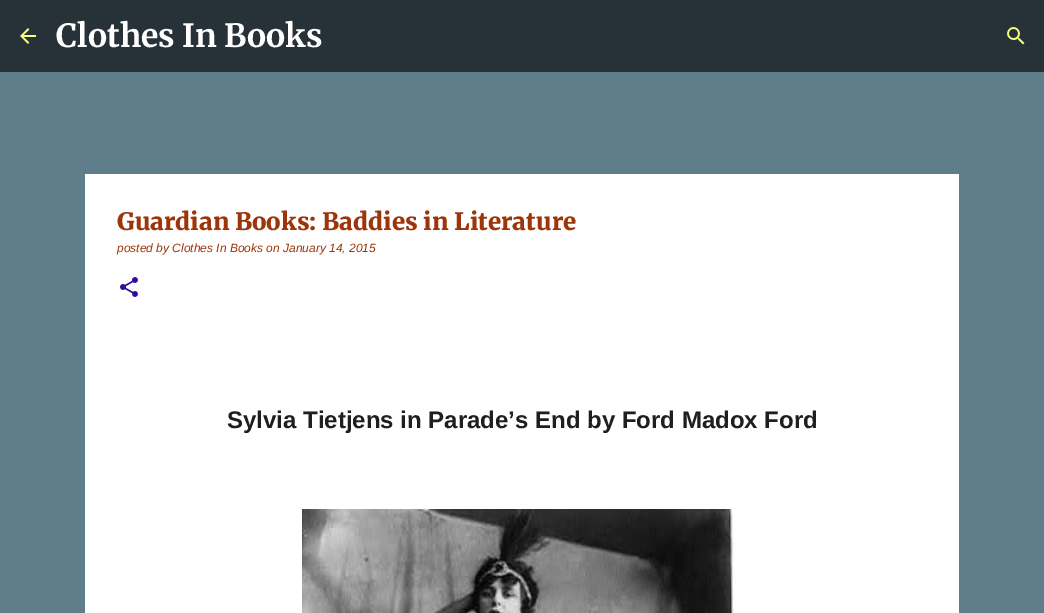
%!PS
<< /PageSize [1044 613] >> setpagedevice
/picture { 5 dict begin { /h /w /y /x /name } { exch def } forall
  gsave x y translate w h scale
  w h 8 [w 0 0 h 0 0] name (r) file false 3 colorimage grestore end } def
0 613 translate 1 -1 scale
4 setmiterlimit
0.376 0.49 0.545 setrgbcolor
0 0 1044 613 rectfill
0.149 0.196 0.22 setrgbcolor
0 0 1044 72 rectfill
(img1.rgb) 20 28 16 16 picture
/Merriweather-Bold [32 0 0 -32 0 0] selectfont
1 setgray
56 47 moveto (Clothes In Books) show
(img2.rgb) 1007 27 18 18 picture
85 174 874 439 rectfill
/Merriweather-Black [24 0 0 -24 0 0] selectfont
0.612 0.208 0.039 setrgbcolor
117 230 moveto (Guardian Books: Baddies in Literature) show
/LiberationSans-Italic [12 0 0 -12 0 0] selectfont
117 252 moveto (posted by Clothes In Books on January 14, 2015) show
(img3.rgb) 120 277 18 20 picture
/LiberationSans-Bold [24 0 0 -24 0 0] selectfont
0.122 setgray
227 428 moveto (Sylvia Tietjens in Parade’s End by Ford Madox Ford) show
(img4.rgb) 302 509 434 104 picture
showpage
